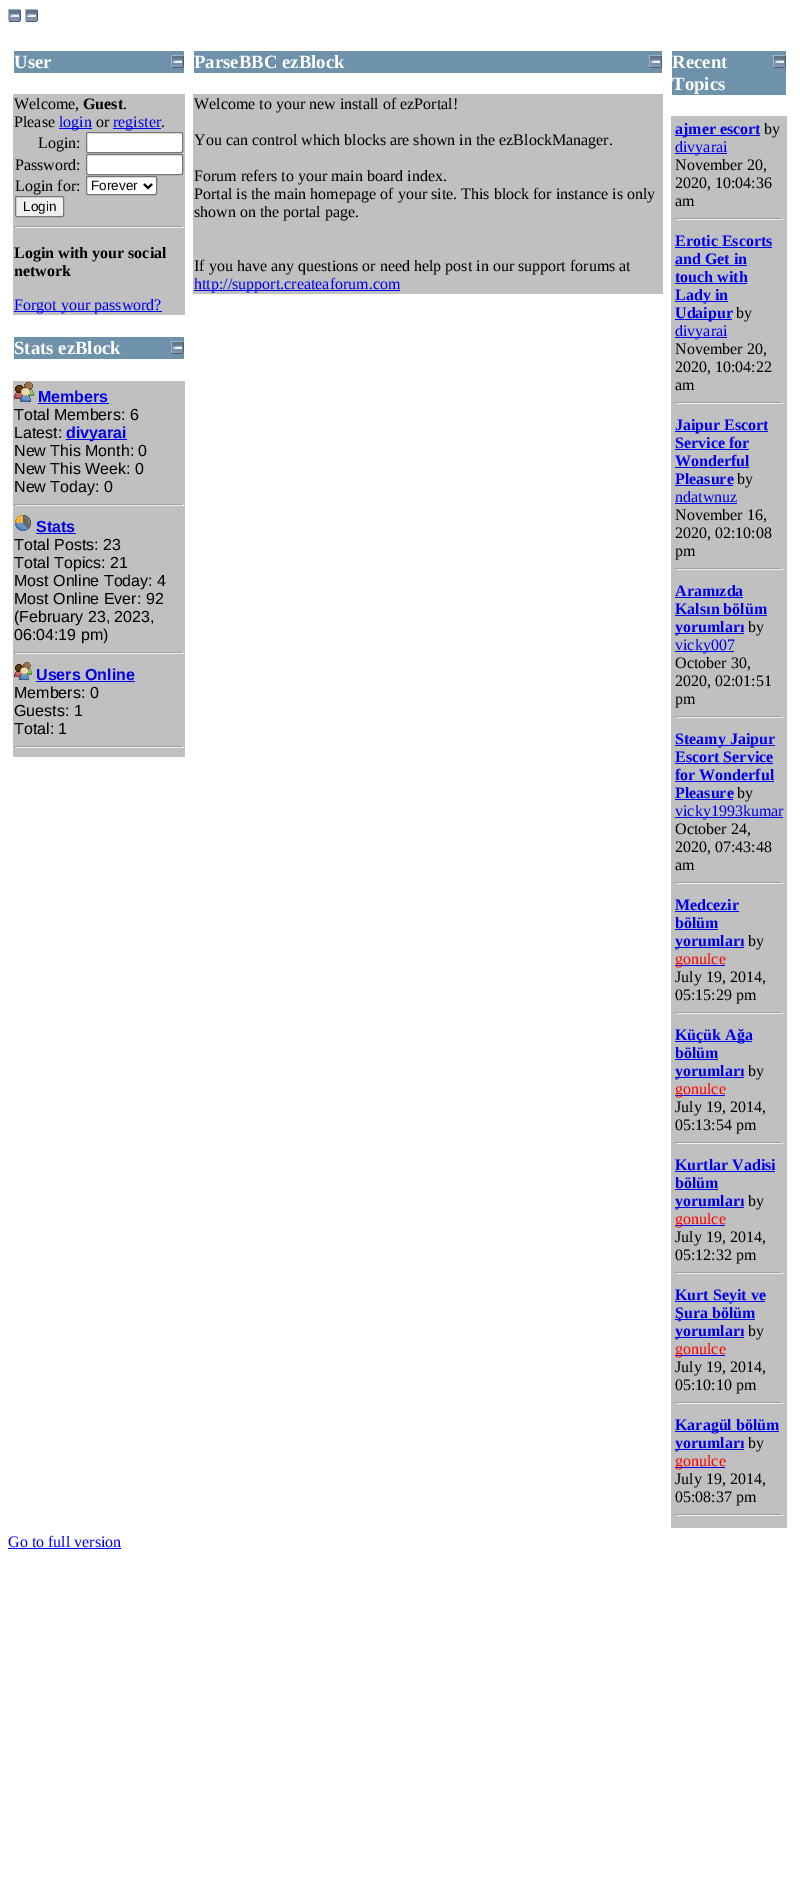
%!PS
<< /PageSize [800 1878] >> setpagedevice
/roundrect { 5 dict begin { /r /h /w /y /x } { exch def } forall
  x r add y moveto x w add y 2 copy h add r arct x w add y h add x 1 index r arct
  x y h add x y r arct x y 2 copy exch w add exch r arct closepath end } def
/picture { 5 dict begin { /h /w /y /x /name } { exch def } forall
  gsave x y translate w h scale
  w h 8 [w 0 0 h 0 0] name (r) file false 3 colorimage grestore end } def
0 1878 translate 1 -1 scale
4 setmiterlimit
1 setgray
0 0 800 1878 rectfill
(img1.rgb) 8 9 13 13 picture
(img1.rgb) 25 9 13 13 picture
0.427 0.573 0.667 setrgbcolor
14 51 170 22 rectfill
/LiberationSerif-Bold [18.75 0 0 -18.75 0 0] selectfont
1 setgray
14 68 moveto (User) show
(img2.rgb) 171 55 13 13 picture
0.753 setgray
13 94 172 221 rectfill
/LiberationSerif-Regular [16 0 0 -16 0 0] selectfont
0 setgray
14 109 moveto (Welcome,) show
/LiberationSerif-Bold [16 0 0 -16 0 0] selectfont
83 109 moveto (Guest) show
/LiberationSerif-Regular [16 0 0 -16 0 0] selectfont
123 109 moveto (.) show
14 127 moveto (Please) show
0 0 0.933 setrgbcolor
59 128 33 1 rectfill
59 127 moveto (login) show
0 setgray
96 127 moveto (or) show
0 0 0.933 setrgbcolor
113 128 48 1 rectfill
113 127 moveto (register) show
0 setgray
161 127 moveto (.) show
38 148 moveto (Login:) show
1 setgray
86.5 132.5 96 20 1.5 roundrect gsave fill grestore
0.463 setgray
stroke
0 setgray
15 170 moveto (Password:) show
1 setgray
86.5 154.5 96 20 1.5 roundrect gsave fill grestore
0.463 setgray
stroke
0 setgray
15 191 moveto (Login for:) show
1 setgray
86.5 176.5 70 18 1.5 roundrect gsave fill grestore
0.463 setgray
stroke
0 setgray
2 setlinewidth
newpath 144 184 moveto 148 188 lineto 152 184 lineto stroke
/LiberationSans-Regular [13.5 0 0 -13.5 0 0] selectfont
91 190 moveto (Forever) show
0.937 setgray
15.5 196.5 48 20 1.5 roundrect gsave fill grestore
0.463 setgray
1 setlinewidth
stroke
0 setgray
23 211 moveto (Login) show
0.624 setgray
14 226 170 1 rectfill
0.933 setgray
183 226 1 2 rectfill
14 227 170 1 rectfill
0.624 setgray
14 226 1 2 rectfill
/LiberationSerif-Bold [16 0 0 -16 0 0] selectfont
0 setgray
14 258 moveto (Login with your social) show
14 276 moveto (network) show
0 0 0.933 setrgbcolor
14 311 148 1 rectfill
/LiberationSerif-Regular [16 0 0 -16 0 0] selectfont
14 310 moveto (Forgot your password?) show
0.427 0.573 0.667 setrgbcolor
14 337 170 22 rectfill
/LiberationSerif-Bold [18.75 0 0 -18.75 0 0] selectfont
1 setgray
14 354 moveto (Stats ezBlock) show
(img2.rgb) 171 341 13 13 picture
0.753 setgray
13 381 172 376 rectfill
(img3.rgb) 14 382 20 20 picture
/LiberationSans-Bold [16 0 0 -16 0 0] selectfont
0 0 0.933 setrgbcolor
38 402 moveto (Members) show
38 403 71 1 rectfill
/LiberationSans-Regular [16 0 0 -16 0 0] selectfont
0 setgray
14 420 moveto (Total Members: 6) show
14 438 moveto (Latest:) show
0 0 0.933 setrgbcolor
66 439 61 1 rectfill
/LiberationSans-Bold [16 0 0 -16 0 0] selectfont
66 438 moveto (divyarai) show
/LiberationSans-Regular [16 0 0 -16 0 0] selectfont
0 setgray
14 456 moveto (New This Month: 0) show
14 474 moveto (New This Week: 0) show
14 492 moveto (New Today: 0) show
0.624 setgray
14 504 170 1 rectfill
0.933 setgray
183 504 1 2 rectfill
14 505 170 1 rectfill
0.624 setgray
14 504 1 2 rectfill
(img4.rgb) 15 515 16 16 picture
/LiberationSans-Bold [16 0 0 -16 0 0] selectfont
0 0 0.933 setrgbcolor
36 532 moveto (Stats) show
36 533 40 1 rectfill
/LiberationSans-Regular [16 0 0 -16 0 0] selectfont
0 setgray
14 550 moveto (Total Posts: 23) show
14 568 moveto (Total Topics: 21) show
14 586 moveto (Most Online Today: 4) show
14 604 moveto (Most Online Ever: 92) show
14 622 moveto (\(February 23, 2023,) show
14 640 moveto (06:04:19 pm\)) show
0.624 setgray
14 652 170 1 rectfill
0.933 setgray
183 652 1 2 rectfill
14 653 170 1 rectfill
0.624 setgray
14 652 1 2 rectfill
(img5.rgb) 14 662 18 18 picture
/LiberationSans-Bold [16 0 0 -16 0 0] selectfont
0 0 0.933 setrgbcolor
36 680 moveto (Users Online) show
36 681 99 1 rectfill
/LiberationSans-Regular [16 0 0 -16 0 0] selectfont
0 setgray
14 698 moveto (Members: 0) show
14 716 moveto (Guests: 1) show
14 734 moveto (Total: 1) show
0.624 setgray
14 746 170 1 rectfill
0.933 setgray
183 746 1 2 rectfill
14 747 170 1 rectfill
0.624 setgray
14 746 1 2 rectfill
0.427 0.573 0.667 setrgbcolor
194 51 468 22 rectfill
/LiberationSerif-Bold [18.75 0 0 -18.75 0 0] selectfont
1 setgray
194 68 moveto (ParseBBC ezBlock) show
(img2.rgb) 649 55 13 13 picture
0.753 setgray
193 94 470 200 rectfill
/LiberationSerif-Regular [16 0 0 -16 0 0] selectfont
0 setgray
194 109 moveto (Welcome to your new install of ezPortal!) show
194 145 moveto (You can control which blocks are shown in the ezBlockManager.) show
194 181 moveto (Forum refers to your main board index.) show
194 199 moveto (Portal is the main homepage of your site. This block for instance is only) show
194 217 moveto (shown on the portal page.) show
194 271 moveto (If you have any questions or need help post in our support forums at) show
0 0 0.933 setrgbcolor
194 290 206 1 rectfill
194 289 moveto (http://support.createaforum.com) show
0.427 0.573 0.667 setrgbcolor
672 51 114 44 rectfill
/LiberationSerif-Bold [18.75 0 0 -18.75 0 0] selectfont
1 setgray
672 68 moveto (Recent) show
(img2.rgb) 773 55 13 13 picture
672 90 moveto (Topics) show
0.753 setgray
671 116 116 1412 rectfill
0 0 0.933 setrgbcolor
675 135 85 1 rectfill
/LiberationSerif-Bold [16 0 0 -16 0 0] selectfont
675 134 moveto (ajmer escort) show
/LiberationSerif-Regular [16 0 0 -16 0 0] selectfont
0 setgray
764 134 moveto (by) show
0 0 0.933 setrgbcolor
675 153 52 1 rectfill
675 152 moveto (divyarai) show
0 setgray
675 170 moveto (November 20,) show
675 188 moveto (2020, 10:04:36) show
675 206 moveto (am) show
0.624 setgray
675 218 108 1 rectfill
0.933 setgray
782 218 1 2 rectfill
675 219 108 1 rectfill
0.624 setgray
675 218 1 2 rectfill
/LiberationSerif-Bold [16 0 0 -16 0 0] selectfont
0 0 0.933 setrgbcolor
675 246 moveto (Erotic Escorts) show
675 247 97 1 rectfill
675 264 moveto (and Get in) show
675 265 72 1 rectfill
675 282 moveto (touch with) show
675 283 72 1 rectfill
675 301 53 1 rectfill
675 300 moveto (Lady in) show
675 319 57 1 rectfill
675 318 moveto (Udaipur) show
/LiberationSerif-Regular [16 0 0 -16 0 0] selectfont
0 setgray
736 318 moveto (by) show
0 0 0.933 setrgbcolor
675 337 52 1 rectfill
675 336 moveto (divyarai) show
0 setgray
675 354 moveto (November 20,) show
675 372 moveto (2020, 10:04:22) show
675 390 moveto (am) show
0.624 setgray
675 402 108 1 rectfill
0.933 setgray
782 402 1 2 rectfill
675 403 108 1 rectfill
0.624 setgray
675 402 1 2 rectfill
0 0 0.933 setrgbcolor
675 431 93 1 rectfill
/LiberationSerif-Bold [16 0 0 -16 0 0] selectfont
675 430 moveto (Jaipur Escort) show
675 448 moveto (Service for) show
675 449 74 1 rectfill
675 466 moveto (Wonderful) show
675 467 74 1 rectfill
675 484 moveto (Pleasure) show
675 485 58 1 rectfill
/LiberationSerif-Regular [16 0 0 -16 0 0] selectfont
0 setgray
737 484 moveto (by) show
0 0 0.933 setrgbcolor
675 502 moveto (ndatwnuz) show
675 503 62 1 rectfill
0 setgray
675 520 moveto (November 16,) show
675 538 moveto (2020, 02:10:08) show
675 556 moveto (pm) show
0.624 setgray
675 568 108 1 rectfill
0.933 setgray
782 568 1 2 rectfill
675 569 108 1 rectfill
0.624 setgray
675 568 1 2 rectfill
/LiberationSerif-Bold [16 0 0 -16 0 0] selectfont
0 0 0.933 setrgbcolor
675 596 moveto (Aramızda) show
675 597 68 1 rectfill
675 614 moveto (Kalsın bölüm) show
675 615 92 1 rectfill
675 633 69 1 rectfill
675 632 moveto (yorumları) show
/LiberationSerif-Regular [16 0 0 -16 0 0] selectfont
0 setgray
748 632 moveto (by) show
0 0 0.933 setrgbcolor
675 651 59 1 rectfill
675 650 moveto (vicky007) show
0 setgray
675 668 moveto (October 30,) show
675 686 moveto (2020, 02:01:51) show
675 704 moveto (pm) show
0.624 setgray
675 716 108 1 rectfill
0.933 setgray
782 716 1 2 rectfill
675 717 108 1 rectfill
0.624 setgray
675 716 1 2 rectfill
0 0 0.933 setrgbcolor
675 745 100 1 rectfill
/LiberationSerif-Bold [16 0 0 -16 0 0] selectfont
675 744 moveto (Steamy Jaipur) show
675 762 moveto (Escort Service) show
675 763 98 1 rectfill
675 780 moveto (for Wonderful) show
675 781 99 1 rectfill
675 798 moveto (Pleasure) show
675 799 58 1 rectfill
/LiberationSerif-Regular [16 0 0 -16 0 0] selectfont
0 setgray
737 798 moveto (by) show
0 0 0.933 setrgbcolor
675 817 108 1 rectfill
675 816 moveto (vicky1993kumar) show
0 setgray
675 834 moveto (October 24,) show
675 852 moveto (2020, 07:43:48) show
675 870 moveto (am) show
0.624 setgray
675 882 108 1 rectfill
0.933 setgray
782 882 1 2 rectfill
675 883 108 1 rectfill
0.624 setgray
675 882 1 2 rectfill
/LiberationSerif-Bold [16 0 0 -16 0 0] selectfont
0 0 0.933 setrgbcolor
675 910 moveto (Medcezir) show
675 911 64 1 rectfill
675 928 moveto (bölüm) show
675 929 43 1 rectfill
675 947 69 1 rectfill
675 946 moveto (yorumları) show
/LiberationSerif-Regular [16 0 0 -16 0 0] selectfont
0 setgray
748 946 moveto (by) show
0 0 0.933 setrgbcolor
675 965 50 1 rectfill
1 0 0 setrgbcolor
675 964 moveto (gonulce) show
0 setgray
675 982 moveto (July 19, 2014,) show
675 1000 moveto (05:15:29 pm) show
0.624 setgray
675 1012 108 1 rectfill
0.933 setgray
782 1012 1 2 rectfill
675 1013 108 1 rectfill
0.624 setgray
675 1012 1 2 rectfill
0 0 0.933 setrgbcolor
675 1041 77 1 rectfill
/LiberationSerif-Bold [16 0 0 -16 0 0] selectfont
675 1040 moveto (Küçük Ağa) show
675 1058 moveto (bölüm) show
675 1059 43 1 rectfill
675 1077 69 1 rectfill
675 1076 moveto (yorumları) show
/LiberationSerif-Regular [16 0 0 -16 0 0] selectfont
0 setgray
748 1076 moveto (by) show
0 0 0.933 setrgbcolor
675 1095 50 1 rectfill
1 0 0 setrgbcolor
675 1094 moveto (gonulce) show
0 setgray
675 1112 moveto (July 19, 2014,) show
675 1130 moveto (05:13:54 pm) show
0.624 setgray
675 1142 108 1 rectfill
0.933 setgray
782 1142 1 2 rectfill
675 1143 108 1 rectfill
0.624 setgray
675 1142 1 2 rectfill
/LiberationSerif-Bold [16 0 0 -16 0 0] selectfont
0 0 0.933 setrgbcolor
675 1170 moveto (Kurtlar Vadisi) show
675 1171 100 1 rectfill
675 1188 moveto (bölüm) show
675 1189 43 1 rectfill
675 1207 69 1 rectfill
675 1206 moveto (yorumları) show
/LiberationSerif-Regular [16 0 0 -16 0 0] selectfont
0 setgray
748 1206 moveto (by) show
0 0 0.933 setrgbcolor
675 1225 50 1 rectfill
1 0 0 setrgbcolor
675 1224 moveto (gonulce) show
0 setgray
675 1242 moveto (July 19, 2014,) show
675 1260 moveto (05:12:32 pm) show
0.624 setgray
675 1272 108 1 rectfill
0.933 setgray
782 1272 1 2 rectfill
675 1273 108 1 rectfill
0.624 setgray
675 1272 1 2 rectfill
0 0 0.933 setrgbcolor
675 1301 90 1 rectfill
/LiberationSerif-Bold [16 0 0 -16 0 0] selectfont
675 1300 moveto (Kurt Seyit ve) show
675 1319 80 1 rectfill
675 1318 moveto (Şura bölüm) show
675 1337 69 1 rectfill
675 1336 moveto (yorumları) show
/LiberationSerif-Regular [16 0 0 -16 0 0] selectfont
0 setgray
748 1336 moveto (by) show
0 0 0.933 setrgbcolor
675 1355 50 1 rectfill
1 0 0 setrgbcolor
675 1354 moveto (gonulce) show
0 setgray
675 1372 moveto (July 19, 2014,) show
675 1390 moveto (05:10:10 pm) show
0.624 setgray
675 1402 108 1 rectfill
0.933 setgray
782 1402 1 2 rectfill
675 1403 108 1 rectfill
0.624 setgray
675 1402 1 2 rectfill
0 0 0.933 setrgbcolor
675 1431 104 1 rectfill
/LiberationSerif-Bold [16 0 0 -16 0 0] selectfont
675 1430 moveto (Karagül bölüm) show
675 1449 69 1 rectfill
675 1448 moveto (yorumları) show
/LiberationSerif-Regular [16 0 0 -16 0 0] selectfont
0 setgray
748 1448 moveto (by) show
0 0 0.933 setrgbcolor
675 1467 50 1 rectfill
1 0 0 setrgbcolor
675 1466 moveto (gonulce) show
0 setgray
675 1484 moveto (July 19, 2014,) show
675 1502 moveto (05:08:37 pm) show
0.624 setgray
675 1514 108 1 rectfill
0.933 setgray
782 1514 1 2 rectfill
675 1515 108 1 rectfill
0.624 setgray
675 1514 1 2 rectfill
0 0 0.933 setrgbcolor
8 1547 moveto (Go to full version) show
8 1548 113 1 rectfill
showpage
